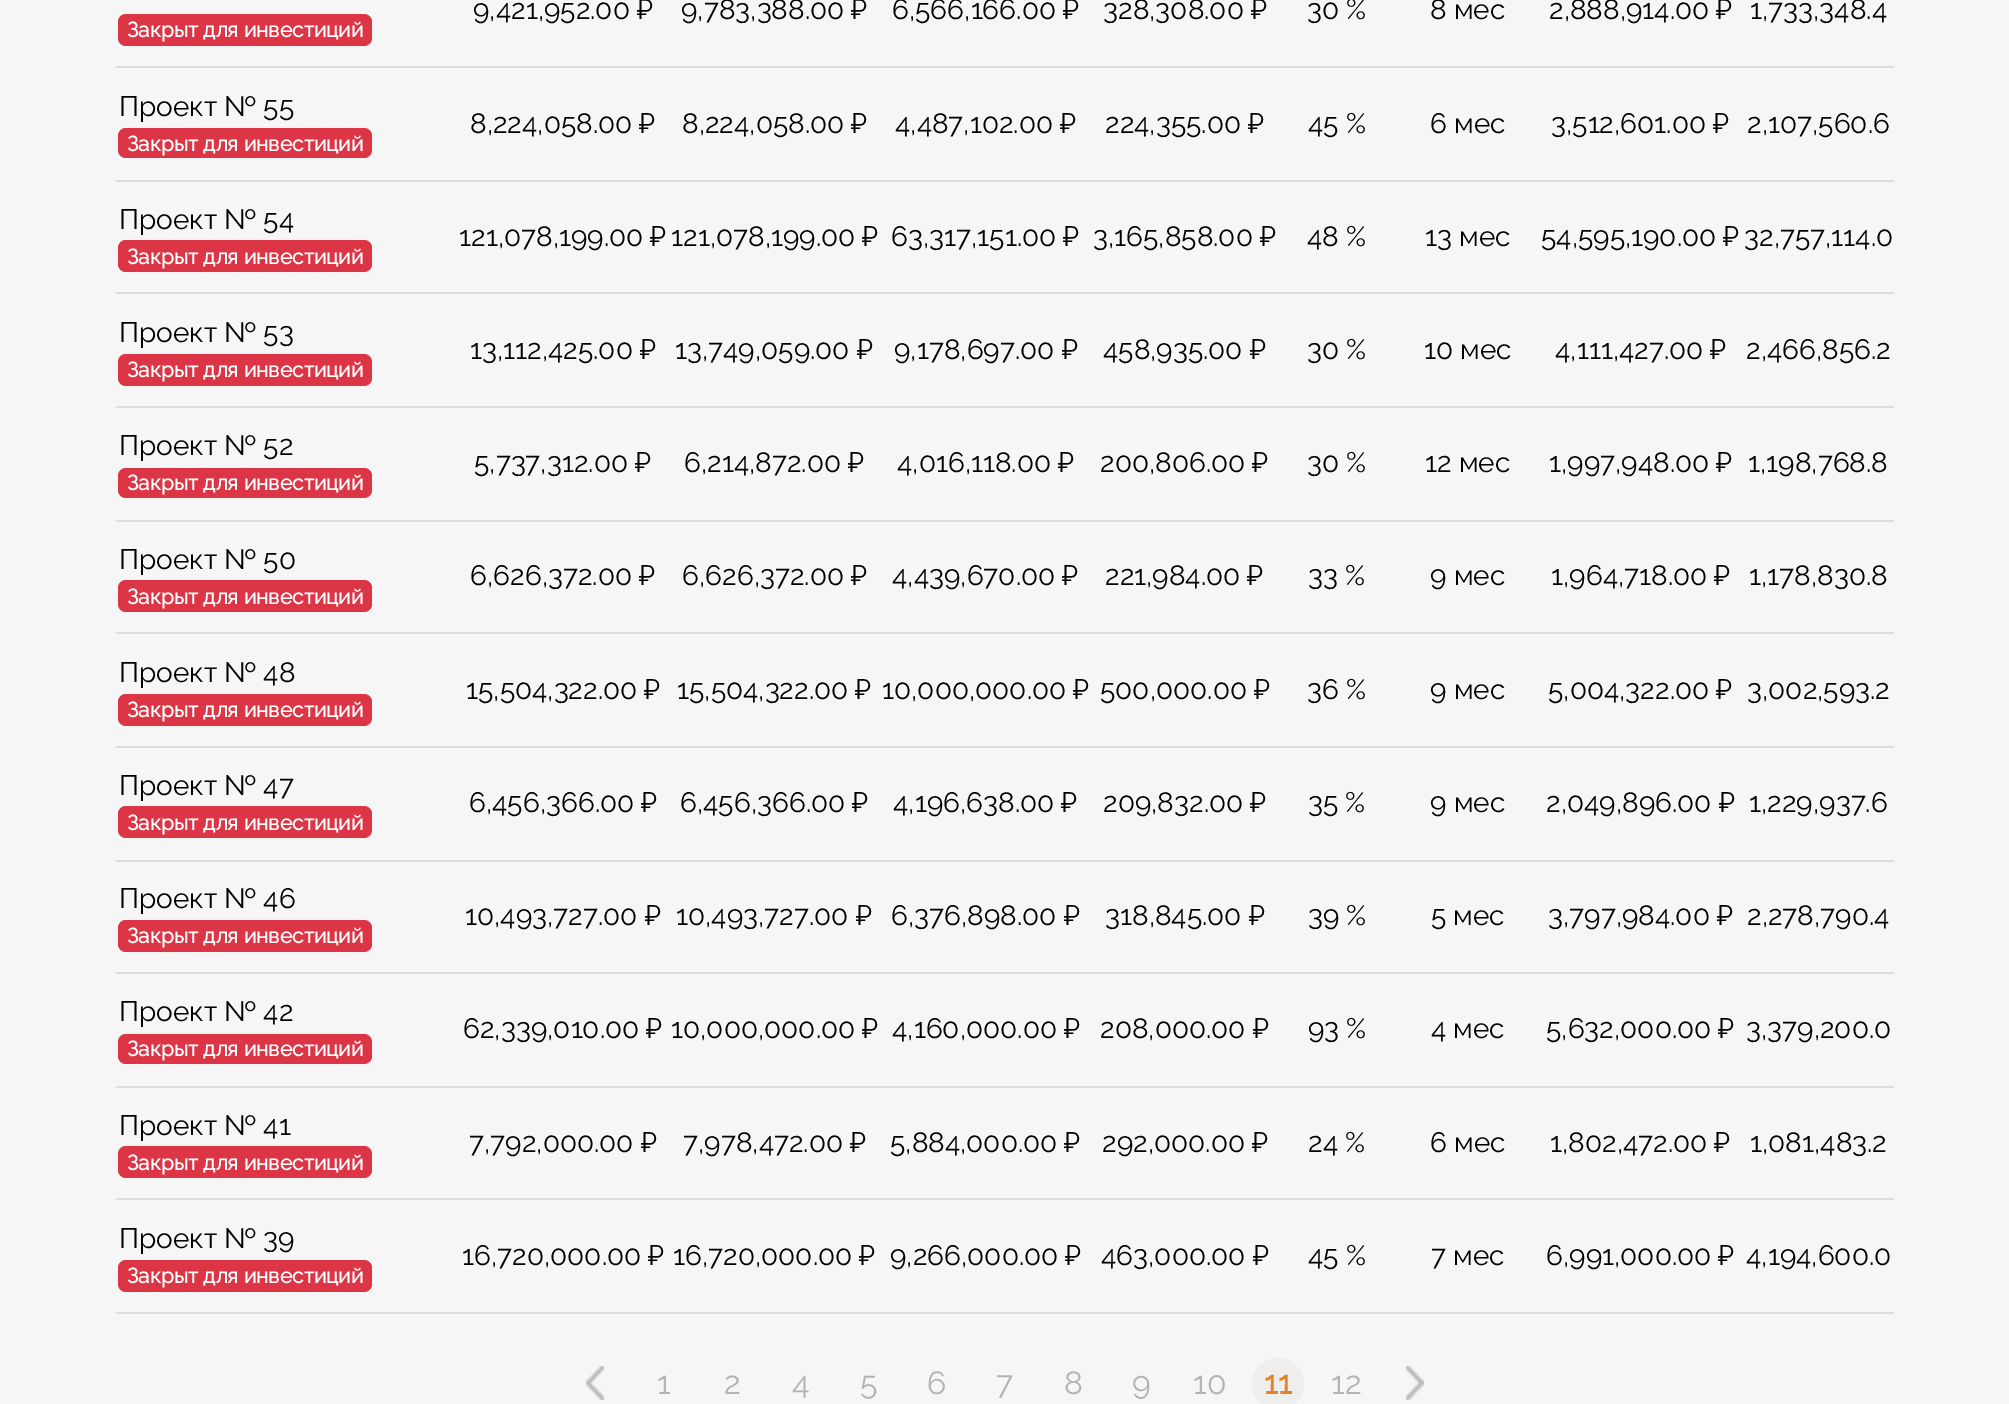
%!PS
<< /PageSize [2009 1404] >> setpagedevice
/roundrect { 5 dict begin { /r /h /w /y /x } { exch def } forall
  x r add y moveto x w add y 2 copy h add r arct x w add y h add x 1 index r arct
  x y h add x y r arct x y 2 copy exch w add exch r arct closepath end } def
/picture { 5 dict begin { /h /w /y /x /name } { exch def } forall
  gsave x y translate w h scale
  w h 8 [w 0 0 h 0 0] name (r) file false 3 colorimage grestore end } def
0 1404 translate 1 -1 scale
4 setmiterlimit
0.965 setgray
0 0 2009 1404 rectfill
/Raleway-Thin [28 0 0 -28 0 0] selectfont
0 setgray
473 19 moveto (9,421,952.00 ₽) show
681 19 moveto (9,783,388.00 ₽) show
892 19 moveto (6,566,166.00 ₽) show
1103 19 moveto (328,308.00 ₽) show
1307 19 moveto (30 %) show
1430 19 moveto (8 мес) show
1549 19 moveto (2,888,914.00 ₽) show
0.867 setgray
116 66 1778 2 rectfill
0 setgray
1750 19 moveto (1,733,348.4) show
0.863 0.208 0.271 setrgbcolor
118 14 254 32 8 roundrect fill
/Raleway-Bold [21 0 0 -21 0 0] selectfont
1 setgray
127 37 moveto (Закрыт для инвестиций) show
/Raleway-Thin [28 0 0 -28 0 0] selectfont
0 setgray
119 116 moveto (Проект № 55) show
0.863 0.208 0.271 setrgbcolor
118 128 254 30 8 roundrect fill
/Raleway-Bold [21 0 0 -21 0 0] selectfont
1 setgray
127 151 moveto (Закрыт для инвестиций) show
/Raleway-Thin [28 0 0 -28 0 0] selectfont
0 setgray
470 133 moveto (8,224,058.00 ₽) show
682 133 moveto (8,224,058.00 ₽) show
895 133 moveto (4,487,102.00 ₽) show
1105 133 moveto (224,355.00 ₽) show
1308 133 moveto (45 %) show
1430 133 moveto (6 мес) show
1551 133 moveto (3,512,601.00 ₽) show
0.867 setgray
116 180 1778 2 rectfill
0 setgray
1747 133 moveto (2,107,560.6) show
119 229 moveto (Проект № 54) show
0.863 0.208 0.271 setrgbcolor
118 240 254 32 8 roundrect fill
/Raleway-Bold [21 0 0 -21 0 0] selectfont
1 setgray
127 264 moveto (Закрыт для инвестиций) show
/Raleway-Thin [28 0 0 -28 0 0] selectfont
0 setgray
459 246 moveto (121,078,199.00 ₽) show
671 246 moveto (121,078,199.00 ₽) show
891 246 moveto (63,317,151.00 ₽) show
1093 246 moveto (3,165,858.00 ₽) show
1307 246 moveto (48 %) show
1425 246 moveto (13 мес) show
1541 246 moveto (54,595,190.00 ₽) show
0.867 setgray
116 292 1778 2 rectfill
0 setgray
1744 246 moveto (32,757,114.0) show
119 342 moveto (Проект № 53) show
0.863 0.208 0.271 setrgbcolor
118 354 254 32 8 roundrect fill
/Raleway-Bold [21 0 0 -21 0 0] selectfont
1 setgray
127 377 moveto (Закрыт для инвестиций) show
/Raleway-Thin [28 0 0 -28 0 0] selectfont
0 setgray
470 359 moveto (13,112,425.00 ₽) show
675 359 moveto (13,749,059.00 ₽) show
894 359 moveto (9,178,697.00 ₽) show
1103 359 moveto (458,935.00 ₽) show
1307 359 moveto (30 %) show
1424 359 moveto (10 мес) show
1555 359 moveto (4,111,427.00 ₽) show
0.867 setgray
116 406 1778 2 rectfill
0 setgray
1746 359 moveto (2,466,856.2) show
119 455 moveto (Проект № 52) show
0.863 0.208 0.271 setrgbcolor
118 468 254 30 8 roundrect fill
/Raleway-Bold [21 0 0 -21 0 0] selectfont
1 setgray
127 490 moveto (Закрыт для инвестиций) show
/Raleway-Thin [28 0 0 -28 0 0] selectfont
0 setgray
474 472 moveto (5,737,312.00 ₽) show
684 472 moveto (6,214,872.00 ₽) show
897 472 moveto (4,016,118.00 ₽) show
1100 472 moveto (200,806.00 ₽) show
1307 472 moveto (30 %) show
1425 472 moveto (12 мес) show
1549 472 moveto (1,997,948.00 ₽) show
0.867 setgray
116 520 1778 2 rectfill
0 setgray
1748 472 moveto (1,198,768.8) show
119 569 moveto (Проект № 50) show
0.863 0.208 0.271 setrgbcolor
118 580 254 32 8 roundrect fill
/Raleway-Bold [21 0 0 -21 0 0] selectfont
1 setgray
127 604 moveto (Закрыт для инвестиций) show
/Raleway-Thin [28 0 0 -28 0 0] selectfont
0 setgray
470 585 moveto (6,626,372.00 ₽) show
682 585 moveto (6,626,372.00 ₽) show
892 585 moveto (4,439,670.00 ₽) show
1105 585 moveto (221,984.00 ₽) show
1308 585 moveto (33 %) show
1430 585 moveto (9 мес) show
1551 585 moveto (1,964,718.00 ₽) show
0.867 setgray
116 632 1778 2 rectfill
0 setgray
1749 585 moveto (1,178,830.8) show
119 682 moveto (Проект № 48) show
0.863 0.208 0.271 setrgbcolor
118 694 254 32 8 roundrect fill
/Raleway-Bold [21 0 0 -21 0 0] selectfont
1 setgray
127 717 moveto (Закрыт для инвестиций) show
/Raleway-Thin [28 0 0 -28 0 0] selectfont
0 setgray
466 699 moveto (15,504,322.00 ₽) show
677 699 moveto (15,504,322.00 ₽) show
882 699 moveto (10,000,000.00 ₽) show
1100 699 moveto (500,000.00 ₽) show
1307 699 moveto (36 %) show
1430 699 moveto (9 мес) show
1548 699 moveto (5,004,322.00 ₽) show
0.867 setgray
116 746 1778 2 rectfill
0 setgray
1747 699 moveto (3,002,593.2) show
119 795 moveto (Проект № 47) show
0.863 0.208 0.271 setrgbcolor
118 806 254 32 8 roundrect fill
/Raleway-Bold [21 0 0 -21 0 0] selectfont
1 setgray
127 830 moveto (Закрыт для инвестиций) show
/Raleway-Thin [28 0 0 -28 0 0] selectfont
0 setgray
469 812 moveto (6,456,366.00 ₽) show
680 812 moveto (6,456,366.00 ₽) show
893 812 moveto (4,196,638.00 ₽) show
1103 812 moveto (209,832.00 ₽) show
1308 812 moveto (35 %) show
1430 812 moveto (9 мес) show
1546 812 moveto (2,049,896.00 ₽) show
0.867 setgray
116 860 1778 2 rectfill
0 setgray
1749 812 moveto (1,229,937.6) show
119 908 moveto (Проект № 46) show
0.863 0.208 0.271 setrgbcolor
118 920 254 32 8 roundrect fill
/Raleway-Bold [21 0 0 -21 0 0] selectfont
1 setgray
127 943 moveto (Закрыт для инвестиций) show
/Raleway-Thin [28 0 0 -28 0 0] selectfont
0 setgray
465 925 moveto (10,493,727.00 ₽) show
676 925 moveto (10,493,727.00 ₽) show
891 925 moveto (6,376,898.00 ₽) show
1105 925 moveto (318,845.00 ₽) show
1308 925 moveto (39 %) show
1431 925 moveto (5 мес) show
1548 925 moveto (3,797,984.00 ₽) show
0.867 setgray
116 972 1778 2 rectfill
0 setgray
1747 925 moveto (2,278,790.4) show
119 1021 moveto (Проект № 42) show
0.863 0.208 0.271 setrgbcolor
118 1034 254 30 8 roundrect fill
/Raleway-Bold [21 0 0 -21 0 0] selectfont
1 setgray
127 1056 moveto (Закрыт для инвестиций) show
/Raleway-Thin [28 0 0 -28 0 0] selectfont
0 setgray
463 1038 moveto (62,339,010.00 ₽) show
671 1038 moveto (10,000,000.00 ₽) show
892 1038 moveto (4,160,000.00 ₽) show
1100 1038 moveto (208,000.00 ₽) show
1308 1038 moveto (93 %) show
1431 1038 moveto (4 мес) show
1546 1038 moveto (5,632,000.00 ₽) show
0.867 setgray
116 1086 1778 2 rectfill
0 setgray
1746 1038 moveto (3,379,200.0) show
119 1135 moveto (Проект № 41) show
0.863 0.208 0.271 setrgbcolor
118 1146 254 32 8 roundrect fill
/Raleway-Bold [21 0 0 -21 0 0] selectfont
1 setgray
127 1170 moveto (Закрыт для инвестиций) show
/Raleway-Thin [28 0 0 -28 0 0] selectfont
0 setgray
469 1152 moveto (7,792,000.00 ₽) show
683 1152 moveto (7,978,472.00 ₽) show
890 1152 moveto (5,884,000.00 ₽) show
1102 1152 moveto (292,000.00 ₽) show
1308 1152 moveto (24 %) show
1430 1152 moveto (6 мес) show
1550 1152 moveto (1,802,472.00 ₽) show
0.867 setgray
116 1198 1778 2 rectfill
0 setgray
1750 1152 moveto (1,081,483.2) show
119 1248 moveto (Проект № 39) show
0.863 0.208 0.271 setrgbcolor
118 1260 254 32 8 roundrect fill
/Raleway-Bold [21 0 0 -21 0 0] selectfont
1 setgray
127 1283 moveto (Закрыт для инвестиций) show
/Raleway-Thin [28 0 0 -28 0 0] selectfont
0 setgray
462 1265 moveto (16,720,000.00 ₽) show
673 1265 moveto (16,720,000.00 ₽) show
890 1265 moveto (9,266,000.00 ₽) show
1101 1265 moveto (463,000.00 ₽) show
1308 1265 moveto (45 %) show
1431 1265 moveto (7 мес) show
1546 1265 moveto (6,991,000.00 ₽) show
0.867 setgray
116 1312 1778 2 rectfill
0 setgray
1746 1265 moveto (4,194,600.0) show
(img1.rgb) 586 1366 18 34 picture
/Raleway-Thin [32 0 0 -32 0 0] selectfont
0.702 setgray
657 1394 moveto (1) show
724 1394 moveto (2) show
792 1394 moveto (4) show
860 1394 moveto (5) show
927 1394 moveto (6) show
996 1394 moveto (7) show
1064 1394 moveto (8) show
1132 1394 moveto (9) show
1193 1394 moveto (10) show
0.933 setgray
newpath 1278 1384 26 0 360 arc closepath fill
/Raleway-Bold [32 0 0 -32 0 0] selectfont
0.918 0.502 0.141 setrgbcolor
1264 1394 moveto (11) show
/Raleway-Thin [32 0 0 -32 0 0] selectfont
0.702 setgray
1331 1394 moveto (12) show
(img2.rgb) 1406 1366 18 34 picture
showpage
